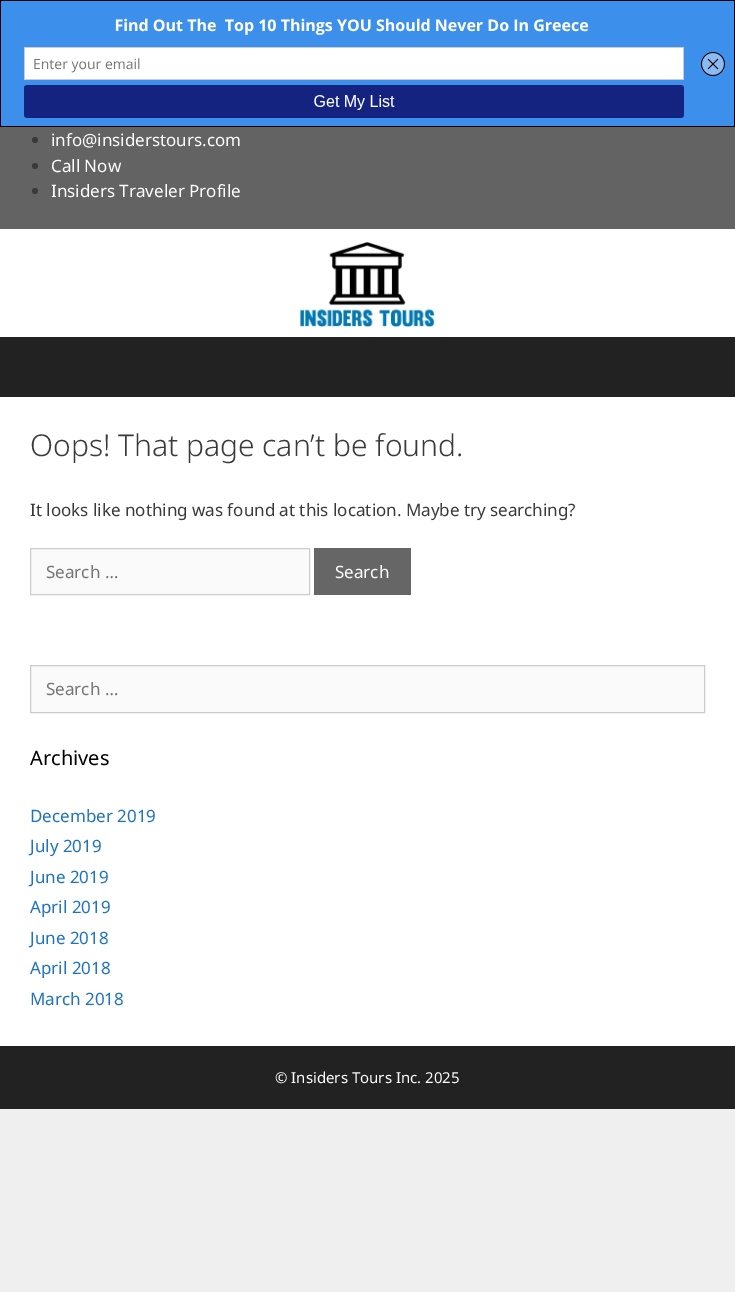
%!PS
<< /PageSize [735 1292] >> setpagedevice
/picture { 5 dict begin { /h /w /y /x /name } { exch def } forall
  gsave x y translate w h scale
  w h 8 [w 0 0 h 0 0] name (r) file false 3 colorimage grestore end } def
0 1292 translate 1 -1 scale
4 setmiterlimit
0.937 setgray
0 0 735 1292 rectfill
(img1.rgb) 0 0 735 127 picture
0.388 setgray
0 127 735 102 rectfill
0.227 setgray
newpath 35 140 3 0 360 arc closepath fill
/NotoSans-Regular [17 0 0 -17 0 0] selectfont
1 setgray
51 146 moveto (info@insiderstours.com) show
0.227 setgray
newpath 35 166 3 0 360 arc closepath fill
1 setgray
51 172 moveto (Call Now) show
0.227 setgray
newpath 35 191 3 0 360 arc closepath fill
1 setgray
51 197 moveto (Insiders Traveler Profile) show
0 229 735 108 rectfill
(img2.rgb) 298 242 138 85 picture
0.133 setgray
0 337 735 60 rectfill
1 setgray
0 397 735 649 rectfill
/NotoSans-Light [30 0 0 -30 0 0] selectfont
0.227 setgray
30 456 moveto (Oops! That page can’t be found.) show
/NotoSans-Regular [17 0 0 -17 0 0] selectfont
30 516 moveto (It looks like nothing was found at this location. Maybe try searching?) show
0.98 setgray
newpath 30.5 548.5 moveto 309.5 548.5 lineto 309.5 594.5 lineto 30.5 594.5 lineto closepath gsave fill grestore
0.8 setgray
stroke
0.459 setgray
46 578 moveto (Search …) show
0.4 setgray
314 548 97 47 rectfill
1 setgray
335 578 moveto (Search) show
0.98 setgray
newpath 30.5 665.5 moveto 704.5 665.5 lineto 704.5 712.5 lineto 30.5 712.5 lineto closepath gsave fill grestore
0.8 setgray
stroke
0.459 setgray
46 695 moveto (Search …) show
/NotoSans-Regular [20 0 0 -20 0 0] selectfont
0 setgray
30 765 moveto (Archives) show
/NotoSans-Regular [17 0 0 -17 0 0] selectfont
0.118 0.451 0.745 setrgbcolor
30 822 moveto (December 2019) show
30 852 moveto (July 2019) show
30 883 moveto (June 2019) show
30 913 moveto (April 2019) show
30 944 moveto (June 2018) show
30 974 moveto (April 2018) show
30 1005 moveto (March 2018) show
0.133 setgray
0 1046 735 63 rectfill
/NotoSans-Regular [15 0 0 -15 0 0] selectfont
1 setgray
275 1083 moveto (© Insiders Tours Inc. 2025) show
showpage
